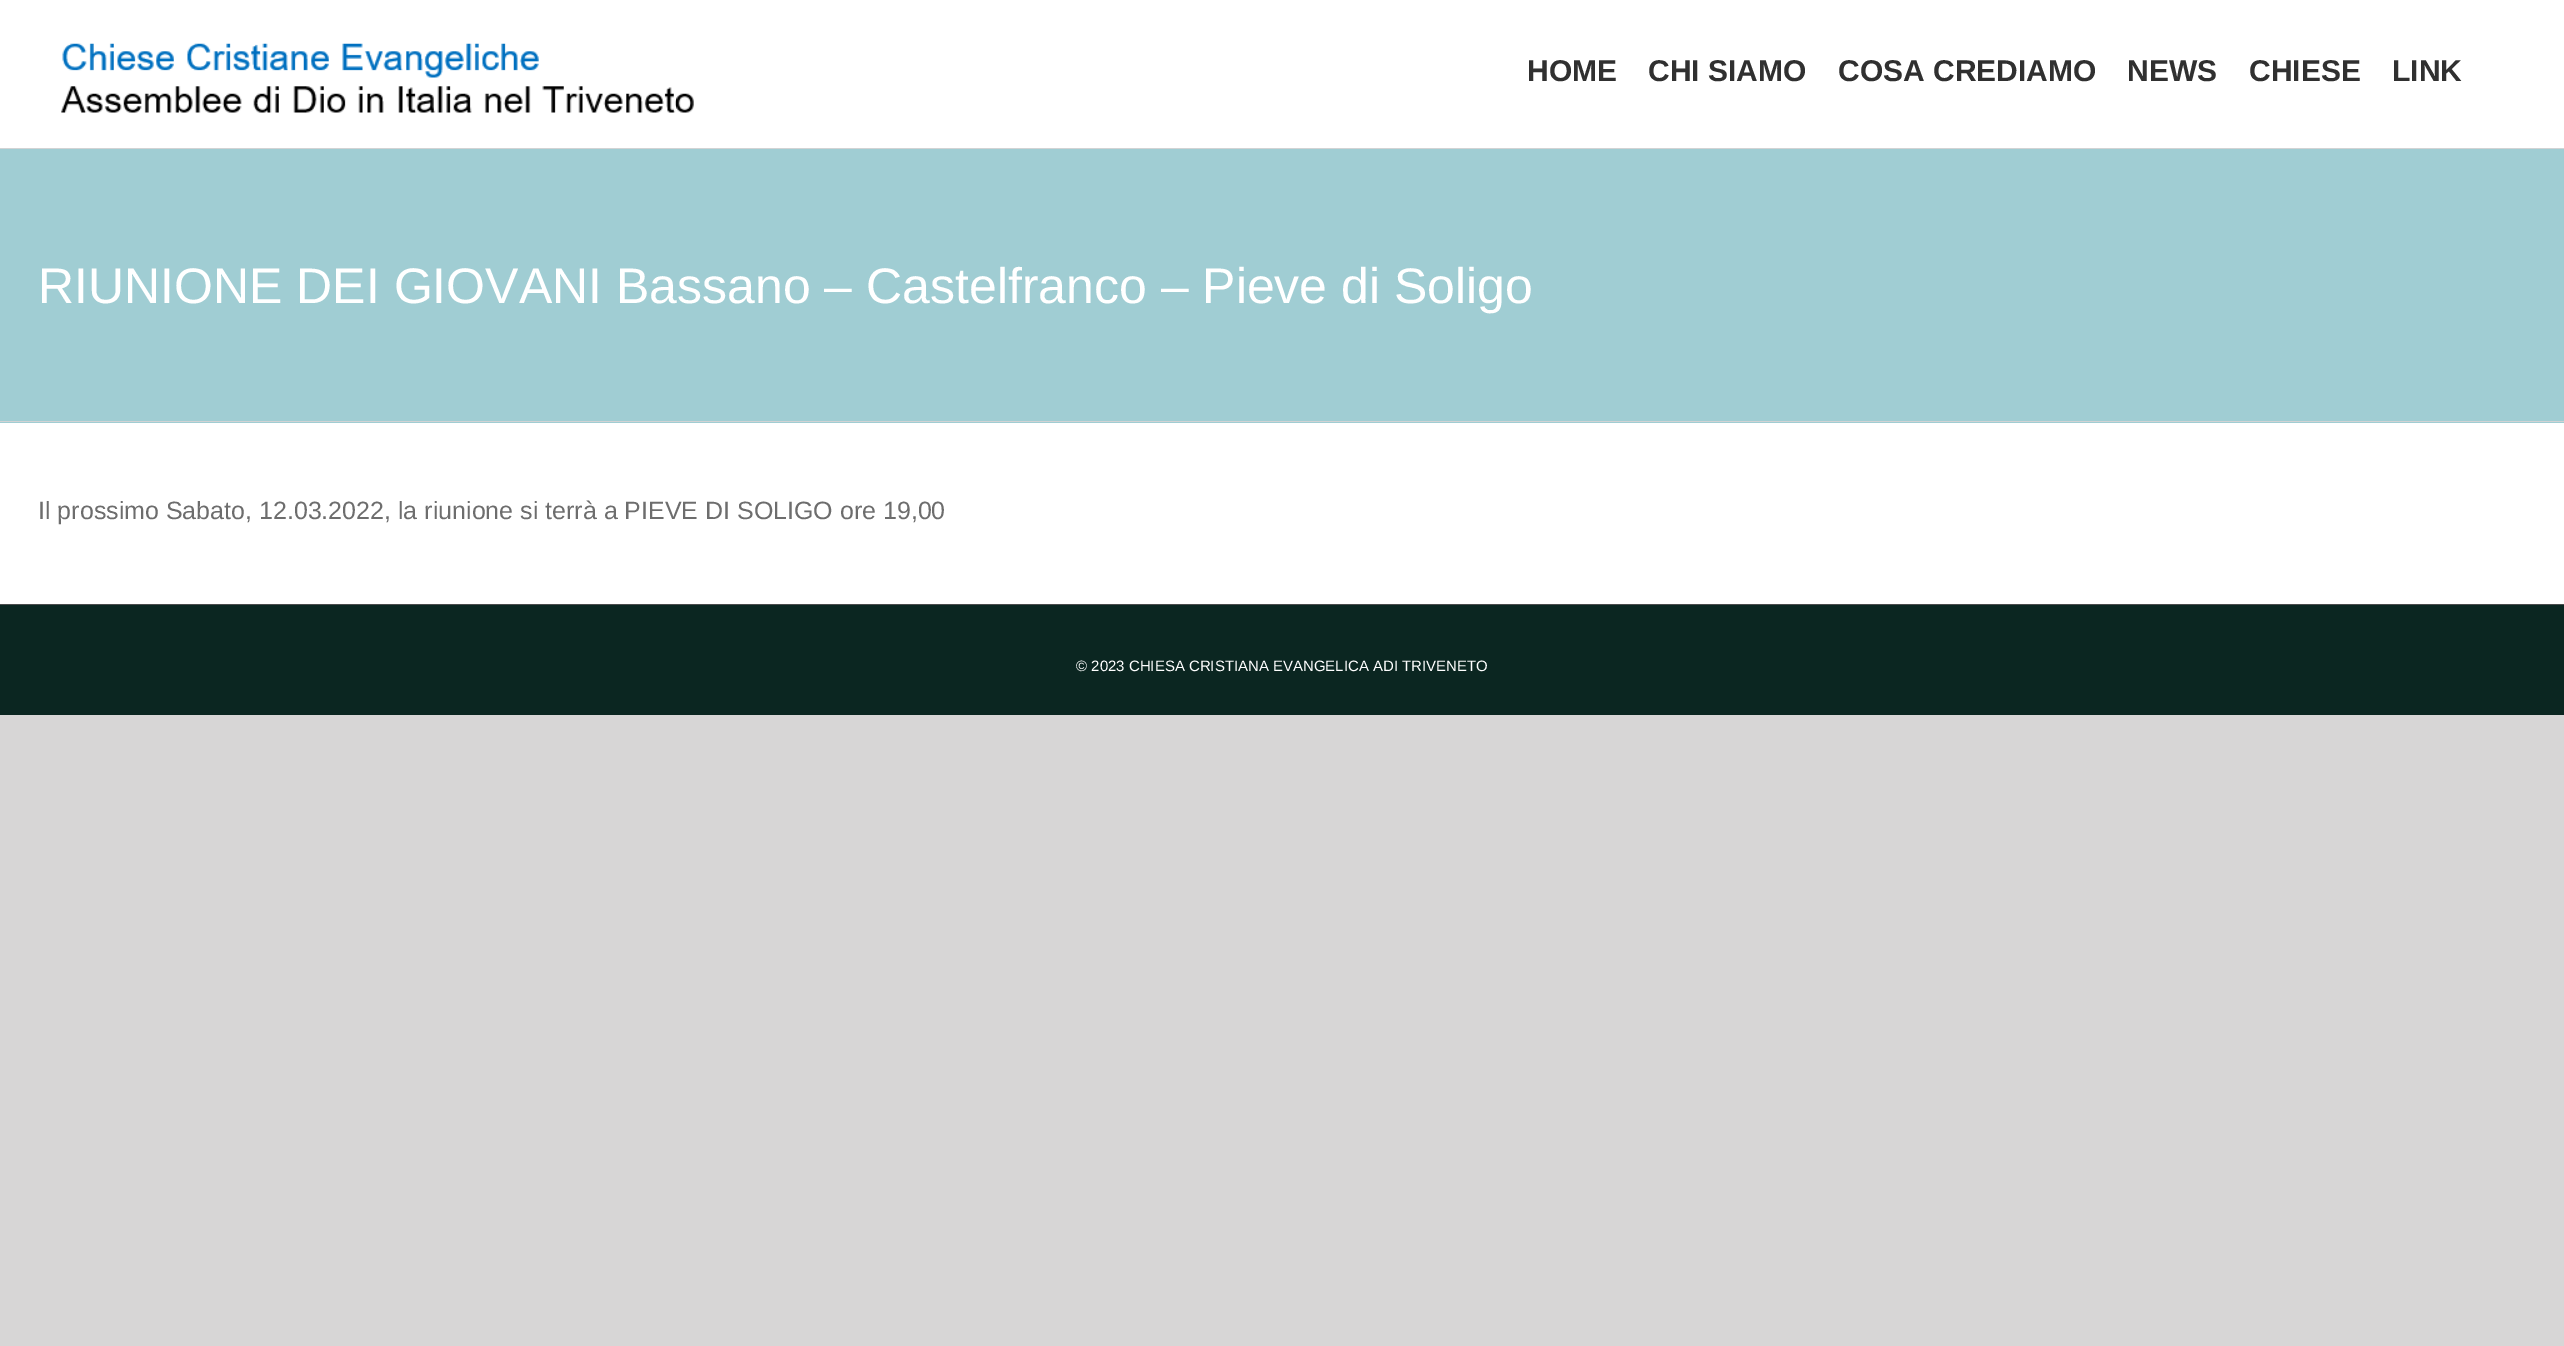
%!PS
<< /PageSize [2564 1346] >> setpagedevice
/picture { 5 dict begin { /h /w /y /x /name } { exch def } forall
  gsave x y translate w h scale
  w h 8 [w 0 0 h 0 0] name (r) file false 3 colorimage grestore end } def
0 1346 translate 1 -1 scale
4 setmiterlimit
0.843 0.839 0.839 setrgbcolor
0 0 2564 1346 rectfill
1 setgray
0 0 2564 604 rectfill
(img1.rgb) 61 43 633 70 picture
/LiberationSans-Bold [30 0 0 -30 0 0] selectfont
0.188 setgray
1527 81 moveto (HOME) show
1648 81 moveto (CHI SIAMO) show
1838 81 moveto (COSA CREDIAMO) show
2127 81 moveto (NEWS) show
2249 81 moveto (CHIESE) show
2392 81 moveto (LINK) show
0.627 0.804 0.827 setrgbcolor
0 149 2564 274 rectfill
0.824 0.827 0.831 setrgbcolor
0 148 2564 1 rectfill
0 421 2564 1 rectfill
/LiberationSans-Regular [50 0 0 -50 0 0] selectfont
1 setgray
38 303 moveto (RIUNIONE DEI GIOVANI Bassano – Castelfranco – Pieve di Soligo) show
/LiberationSans-Regular [25 0 0 -25 0 0] selectfont
0.427 setgray
38 519 moveto (Il prossimo Sabato, 12.03.2022, la riunione si terrà a PIEVE DI SOLIGO ore 19,00) show
0.043 0.149 0.129 setrgbcolor
0 605 2564 110 rectfill
0.294 0.298 0.302 setrgbcolor
0 604 2564 1 rectfill
/LiberationSans-Regular [15 0 0 -15 0 0] selectfont
1 setgray
1076 671 moveto (© 2023 CHIESA CRISTIANA EVANGELICA ADI TRIVENETO) show
showpage
